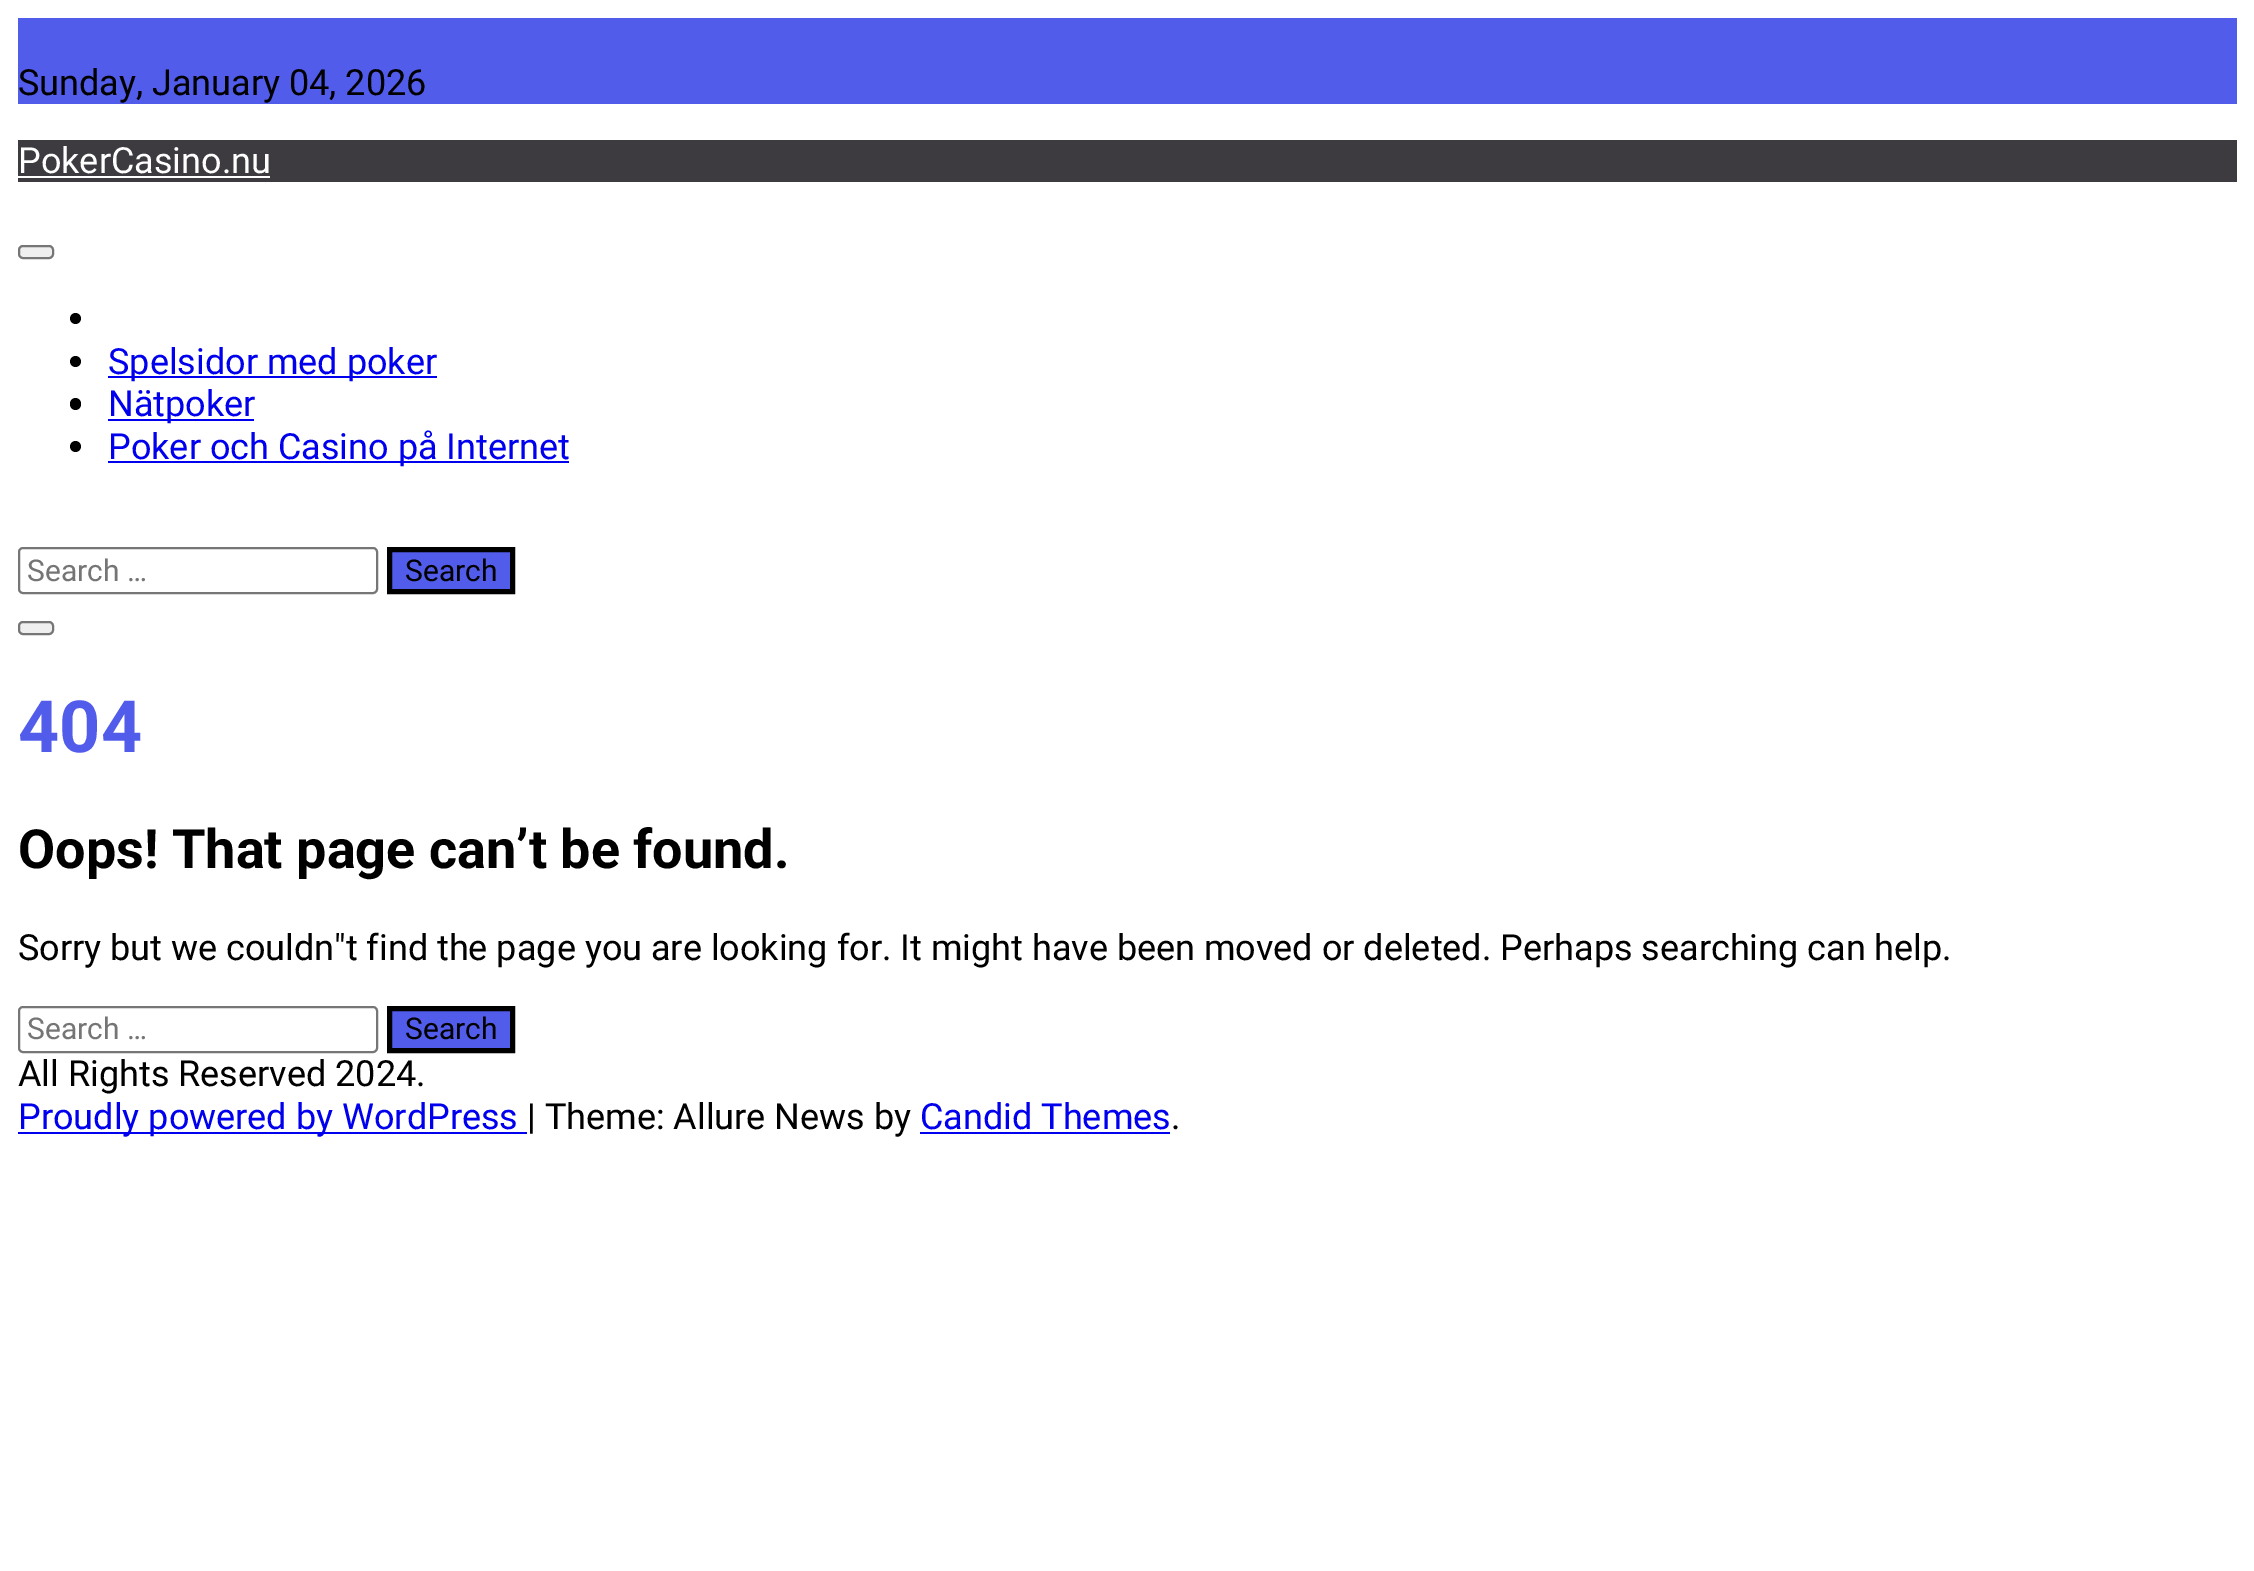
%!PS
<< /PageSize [2254 1571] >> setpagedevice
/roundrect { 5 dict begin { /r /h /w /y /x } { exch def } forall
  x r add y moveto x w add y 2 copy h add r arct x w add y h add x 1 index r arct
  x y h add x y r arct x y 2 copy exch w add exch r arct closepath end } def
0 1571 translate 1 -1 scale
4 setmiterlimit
1 setgray
0 0 2254 1571 rectfill
0.322 0.361 0.922 setrgbcolor
18 18 2219 86 rectfill
/Roboto-Regular [36 0 0 -36 0 0] selectfont
0 setgray
18 95 moveto (Sunday, January 04, 2026) show
0.239 0.231 0.251 setrgbcolor
18 140 2219 42 rectfill
1 setgray
18 173 moveto (PokerCasino.nu) show
18 176 252 2 rectfill
0.937 setgray
19 246 34 12 4 roundrect gsave fill grestore
0.463 setgray
2 setlinewidth
stroke
0 setgray
newpath 75.5 318.5 5.5 0 360 arc closepath fill
newpath 75.5 361.5 5.5 0 360 arc closepath fill
0 0 0.933 setrgbcolor
108 376 329 2 rectfill
108 374 moveto (Spelsidor med poker) show
0 setgray
70 398 11 12 5.5 roundrect fill
0 0 0.933 setrgbcolor
108 419 146 2 rectfill
108 416 moveto (Nätpoker) show
0 setgray
newpath 75.5 446.5 5.5 0 360 arc closepath fill
0 0 0.933 setrgbcolor
108 461 461 2 rectfill
108 459 moveto (Poker och Casino på Internet) show
0.463 setgray
19 548 358 45 4 roundrect stroke
/Roboto-Regular [30 0 0 -30 0 0] selectfont
0.459 setgray
27 581 moveto (Search …) show
0.322 0.361 0.922 setrgbcolor
newpath 389.5 549.5 moveto 512.5 549.5 lineto 512.5 591.5 lineto 389.5 591.5 lineto closepath gsave fill grestore
0 setgray
5 setlinewidth
stroke
405 581 moveto (Search) show
0.937 setgray
19 622 34 12 4 roundrect gsave fill grestore
0.463 setgray
2 setlinewidth
stroke
/Roboto-Bold [72 0 0 -72 0 0] selectfont
0.322 0.361 0.922 setrgbcolor
18 752 moveto (404) show
/Roboto-Bold [54 0 0 -54 0 0] selectfont
0 setgray
18 868 moveto (Oops! That page can’t be found.) show
/Roboto-Regular [36 0 0 -36 0 0] selectfont
18 960 moveto (Sorry but we couldn"t find the page you are looking for. It might have been moved or deleted. Perhaps searching can help.) show
0.463 setgray
19 1007 358 45 4 roundrect stroke
/Roboto-Regular [30 0 0 -30 0 0] selectfont
0.459 setgray
27 1039 moveto (Search …) show
0.322 0.361 0.922 setrgbcolor
newpath 389.5 1008.5 moveto 512.5 1008.5 lineto 512.5 1050.5 lineto 389.5 1050.5 lineto closepath gsave fill grestore
0 setgray
5 setlinewidth
stroke
405 1039 moveto (Search) show
/Roboto-Regular [36 0 0 -36 0 0] selectfont
18 1086 moveto (All Rights Reserved 2024.) show
0 0 0.933 setrgbcolor
18 1132 509 2 rectfill
18 1129 moveto (Proudly powered by WordPress) show
0 setgray
527 1129 moveto (| Theme: Allure News by) show
0 0 0.933 setrgbcolor
920 1129 moveto (Candid Themes) show
920 1132 250 2 rectfill
0 setgray
1171 1129 moveto (.) show
showpage
